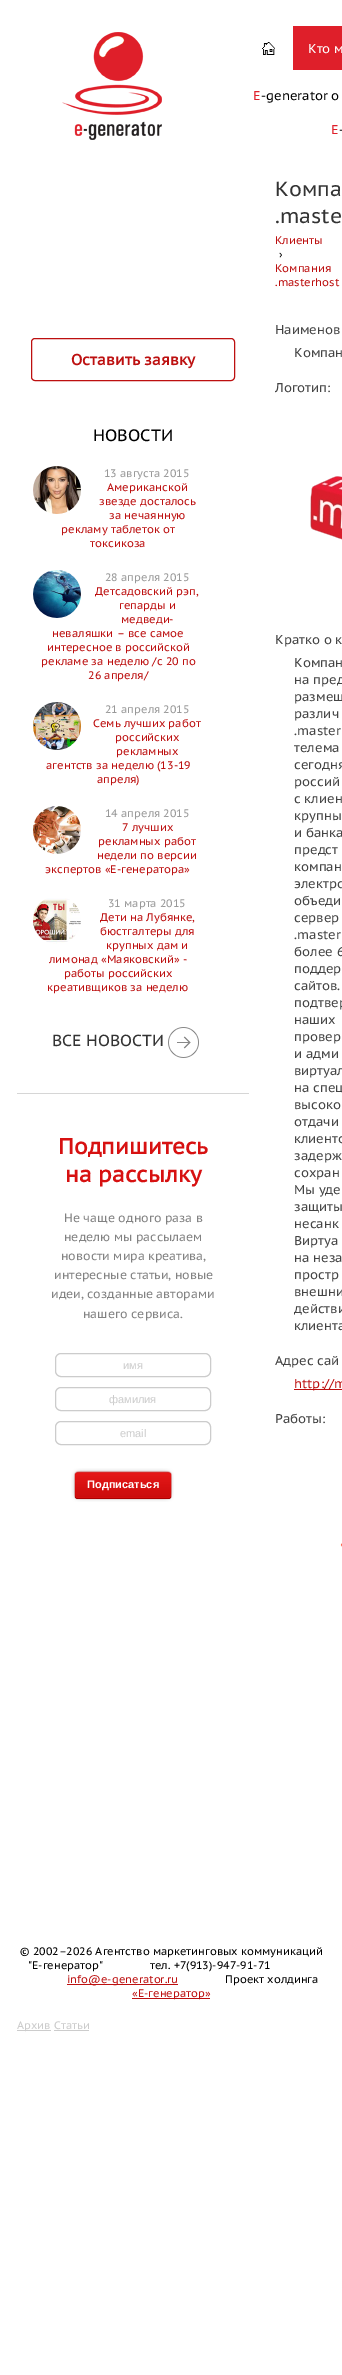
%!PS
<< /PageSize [342 2375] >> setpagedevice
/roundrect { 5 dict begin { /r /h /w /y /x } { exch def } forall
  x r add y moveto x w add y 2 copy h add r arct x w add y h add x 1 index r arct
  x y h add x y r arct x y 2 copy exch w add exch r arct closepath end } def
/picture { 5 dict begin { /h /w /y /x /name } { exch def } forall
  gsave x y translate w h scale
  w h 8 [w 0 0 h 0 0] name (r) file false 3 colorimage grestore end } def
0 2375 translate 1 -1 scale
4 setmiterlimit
1 setgray
0 0 342 2375 rectfill
(img1.rgb) 62 32 100 108 picture
(img2.rgb) 262 42 13 13 picture
0.875 0.122 0.165 setrgbcolor
293 26 49 44 rectfill
/PTSansCaption-Regular [12.75 0 0 -12.75 0 0] selectfont
1 setgray
308 53 moveto (Кто м) show
0.875 0.122 0.165 setrgbcolor
253 100 moveto (E) show
0 setgray
261 100 moveto (-generator о) show
0.875 0.122 0.165 setrgbcolor
331 134 moveto (E) show
0 setgray
339 134 moveto (-) show
/PTSansCaption-Regular [20.5 0 0 -20.5 0 0] selectfont
0.2 setgray
275 196 moveto (Компа) show
275 223 moveto (.maste) show
/PTSansCaption-Regular [11 0 0 -11 0 0] selectfont
0.741 0.063 0.063 setrgbcolor
275 244 moveto (Клиенты) show
0 setgray
279 258 moveto (›) show
0.741 0.063 0.063 setrgbcolor
275 272 moveto (Компания) show
275 286 moveto (.masterhost) show
31.5 338.5 203 42 3.5 roundrect stroke
/PTSansCaption-Bold [15.25 0 0 -15.25 0 0] selectfont
71 365 moveto (Оставить заявку) show
0.839 setgray
17 1093 232 1 rectfill
/PTSansCaption-Regular [16.5 0 0 -16.5 0 0] selectfont
0 setgray
93 441 moveto (НОВОСТИ) show
(img3.rgb) 33 466 48 48 picture
/PTSansCaption-Regular [10.9 0 0 -10.9 0 0] selectfont
0.6 setgray
104 477 moveto (13 августа 2015) show
/PTSansCaption-Regular [11 0 0 -11 0 0] selectfont
0.741 0.063 0.063 setrgbcolor
107 491 moveto (Американской) show
99 505 moveto (звезде досталось) show
109 519 moveto (за нечаянную) show
61 533 moveto (рекламу таблеток от) show
90 547 moveto (токсикоза) show
(img4.rgb) 33 570 48 48 picture
/PTSansCaption-Regular [10.9 0 0 -10.9 0 0] selectfont
0.6 setgray
105 581 moveto (28 апреля 2015) show
/PTSansCaption-Regular [11 0 0 -11 0 0] selectfont
0.741 0.063 0.063 setrgbcolor
95 595 moveto (Детсадовский рэп,) show
119 609 moveto (гепарды и) show
121 623 moveto (медведи-) show
52 637 moveto (неваляшки – все самое) show
47 651 moveto (интересное в российской) show
41 665 moveto (рекламе за неделю /с 20 по) show
88 679 moveto (26 апреля/) show
(img5.rgb) 33 702 48 48 picture
/PTSansCaption-Regular [10.9 0 0 -10.9 0 0] selectfont
0.6 setgray
105 713 moveto (21 апреля 2015) show
/PTSansCaption-Regular [11 0 0 -11 0 0] selectfont
0.741 0.063 0.063 setrgbcolor
93 727 moveto (Семь лучших работ) show
115 741 moveto (российских) show
116 755 moveto (рекламных) show
46 769 moveto (агентств за неделю \(13-19) show
97 783 moveto (апреля\)) show
(img6.rgb) 33 806 48 48 picture
/PTSansCaption-Regular [10.9 0 0 -10.9 0 0] selectfont
0.6 setgray
105 817 moveto (14 апреля 2015) show
/PTSansCaption-Regular [11 0 0 -11 0 0] selectfont
0.741 0.063 0.063 setrgbcolor
122 831 moveto (7 лучших) show
98 845 moveto (рекламных работ) show
97 859 moveto (недели по версии) show
45 873 moveto (экспертов «Е-генератора») show
(img7.rgb) 33 898 48 46 picture
/PTSansCaption-Regular [10.9 0 0 -10.9 0 0] selectfont
0.6 setgray
108 907 moveto (31 марта 2015) show
/PTSansCaption-Regular [11 0 0 -11 0 0] selectfont
0.741 0.063 0.063 setrgbcolor
100 921 moveto (Дети на Лубянке,) show
100 935 moveto (бюстгалтеры для) show
106 949 moveto (крупных дам и) show
49 963 moveto (лимонад «Маяковский» -) show
64 977 moveto (работы российских) show
47 991 moveto (креативщиков за неделю) show
/PTSansCaption-Regular [16 0 0 -16 0 0] selectfont
0.2 setgray
52 1046 moveto (ВСЕ НОВОСТИ) show
(img8.rgb) 168 1027 31 31 picture
/PTSansCaption-Bold [22 0 0 -22 0 0] selectfont
0.843 0.067 0.067 setrgbcolor
58 1154 moveto (Подпишитесь) show
65 1182 moveto (на рассылку) show
/PTSansCaption-Regular [12 0 0 -12 0 0] selectfont
0.51 setgray
64 1222 moveto (Не чаще одного раза в) show
64 1241 moveto (неделю мы рассылаем) show
61 1260 moveto (новости мира креатива,) show
54 1279 moveto (интересные статьи, новые) show
51 1298 moveto (идеи, созданные авторами) show
83 1318 moveto (нашего сервиса.) show
0.8 setgray
55.5 1353.5 155 23 5.5 roundrect stroke
/LiberationSans-Regular [11 0 0 -11 0 0] selectfont
123 1369 moveto (имя) show
55.5 1387.5 155 23 5.5 roundrect stroke
109 1403 moveto (фамилия) show
55.5 1421.5 155 23 5.5 roundrect stroke
120 1437 moveto (email) show
(img9.rgb) 71 1468 103 34 picture
/LiberationSans-Bold [11 0 0 -11 0 0] selectfont
1 setgray
87 1488 moveto (Подписаться) show
/PTSansCaption-Regular [12.75 0 0 -12.75 0 0] selectfont
0.267 setgray
275 334 moveto (Наименов) show
294 357 moveto (Компан) show
275 392 moveto (Логотип:) show
(img10.rgb) 310 476 32 64 picture
275 644 moveto (Кратко о к) show
294 667 moveto (Компан) show
294 684 moveto (на пред) show
294 701 moveto (размещ) show
294 718 moveto (различ) show
294 735 moveto (.master) show
294 752 moveto (телема) show
294 769 moveto (сегодня) show
294 786 moveto (россий) show
294 803 moveto (с клиен) show
294 820 moveto (крупны) show
294 837 moveto (и банка) show
294 854 moveto (предст) show
294 871 moveto (компан) show
294 888 moveto (электро) show
294 905 moveto (объеди) show
294 922 moveto (сервер) show
294 939 moveto (.master) show
294 956 moveto (более 6) show
294 973 moveto (поддер) show
294 990 moveto (сайтов.) show
294 1007 moveto (подтвер) show
294 1024 moveto (наших) show
294 1041 moveto (провер) show
294 1058 moveto (и адми) show
294 1075 moveto (виртуал) show
294 1092 moveto (на спец) show
294 1109 moveto (высоко) show
294 1126 moveto (отдачи) show
294 1143 moveto (клиенто) show
294 1160 moveto (задерж) show
294 1177 moveto (сохран) show
294 1194 moveto (Мы уде) show
294 1211 moveto (защиты) show
294 1228 moveto (несанк) show
294 1245 moveto (Виртуа) show
294 1262 moveto (на неза) show
294 1279 moveto (простр) show
294 1296 moveto (внешни) show
294 1313 moveto (действи) show
294 1330 moveto (клиента) show
275 1365 moveto (Адрес сай) show
0.741 0.063 0.063 setrgbcolor
294 1389 48 1 rectfill
294 1388 moveto (http://m) show
0.267 setgray
275 1423 moveto (Работы:) show
(img11.rgb) 340 1543 2 4 picture
/PTSansCaption-Regular [10.9 0 0 -10.9 0 0] selectfont
0 setgray
20 1955 moveto (© 2002–2026 Агентство маркетинговых коммуникаций) show
28 1969 moveto ("Е-генератор") show
150 1969 moveto (тел. +7\(913\)-947-91-71) show
0.741 0.063 0.063 setrgbcolor
67 1984 111 1 rectfill
67 1983 moveto (info@e-generator.ru) show
0 setgray
225 1983 moveto (Проект холдинга) show
0.741 0.063 0.063 setrgbcolor
132 1998 78 1 rectfill
132 1997 moveto («Е-генератор») show
0.8 setgray
17 2030 34 1 rectfill
17 2029 moveto (Архив Статьи) show
54 2030 35 1 rectfill
showpage
